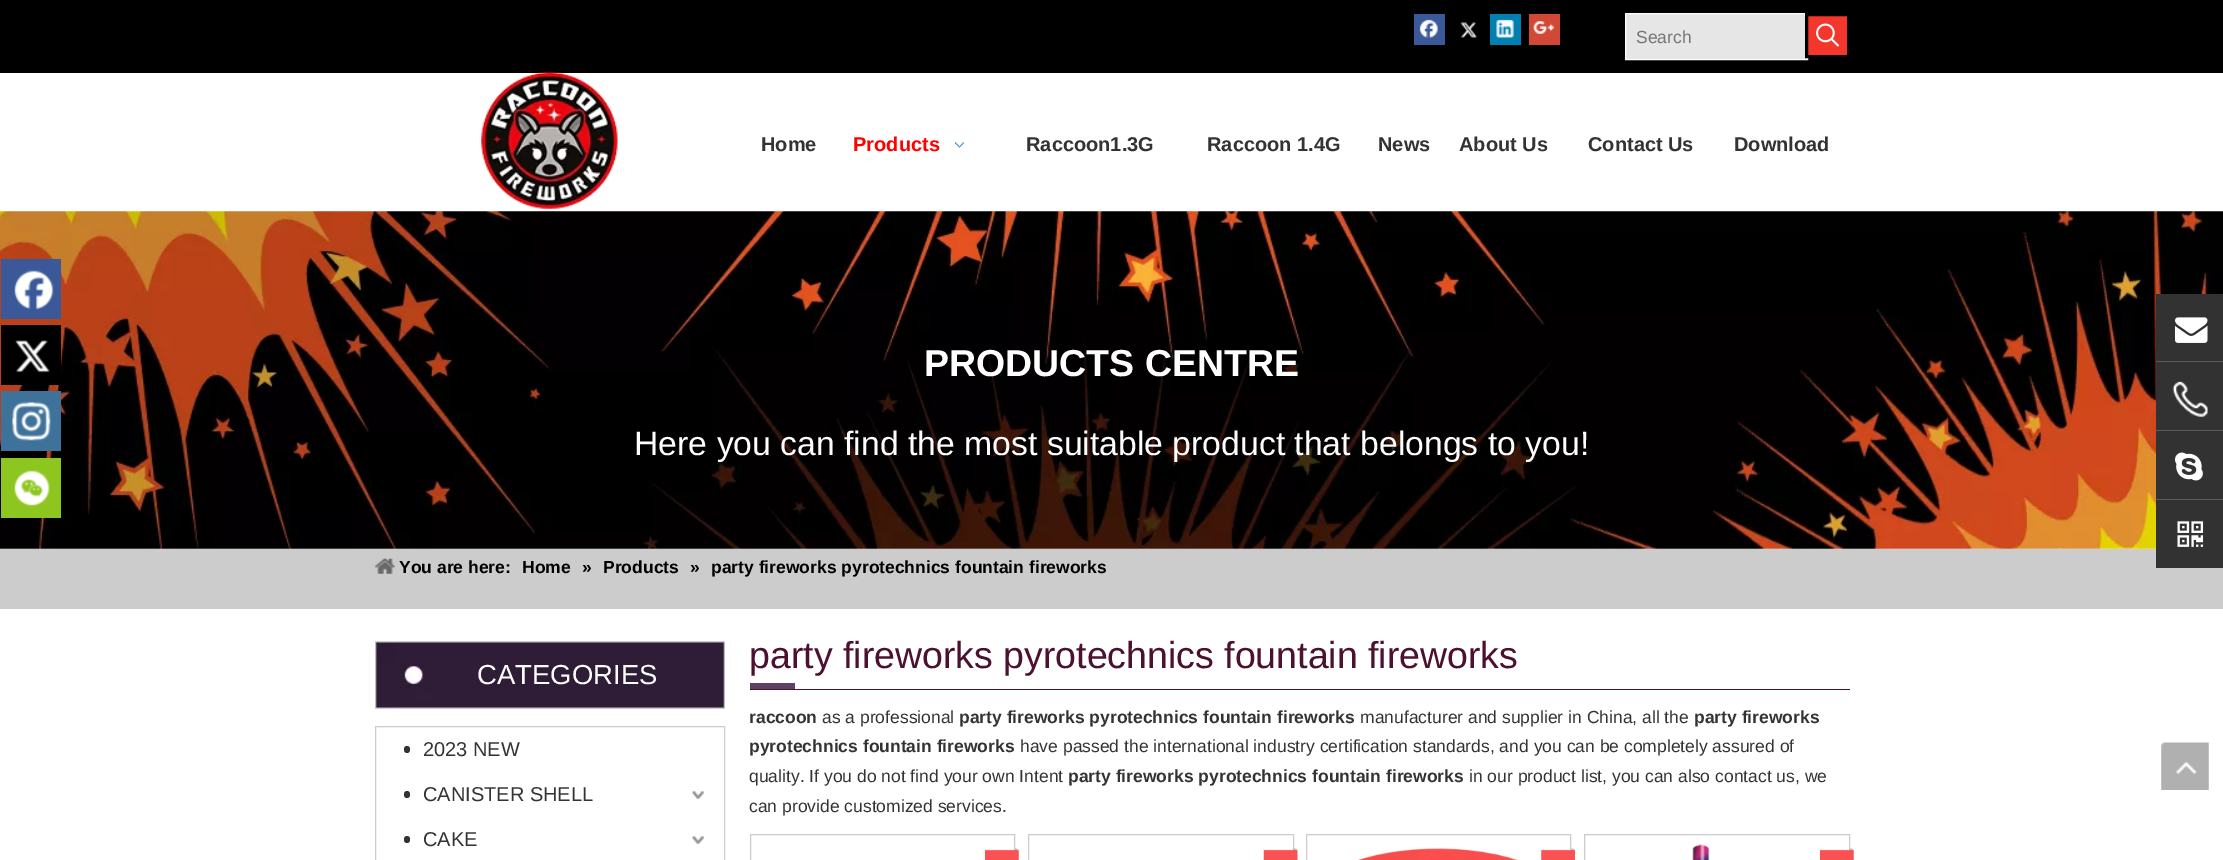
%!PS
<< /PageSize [2223 860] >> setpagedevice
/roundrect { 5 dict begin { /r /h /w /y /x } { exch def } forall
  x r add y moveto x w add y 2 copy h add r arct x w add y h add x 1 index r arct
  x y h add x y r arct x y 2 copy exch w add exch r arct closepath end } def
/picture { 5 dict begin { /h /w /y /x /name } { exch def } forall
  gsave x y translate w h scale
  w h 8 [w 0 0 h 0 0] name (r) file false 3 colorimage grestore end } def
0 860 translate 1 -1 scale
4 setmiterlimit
1 setgray
0 0 2223 860 rectfill
0 setgray
0 0 2223 73 rectfill
0.231 0.349 0.596 setrgbcolor
1414 14 31 31 rectfill
(img1.rgb) 1419 19 19 19 picture
(img2.rgb) 1460 22 17 16 picture
0 0.498 0.694 setrgbcolor
1490 14 31 31 rectfill
(img3.rgb) 1496 19 18 19 picture
0.82 0.282 0.212 setrgbcolor
1529 14 31 31 rectfill
(img4.rgb) 1533 21 21 13 picture
0.902 setgray
newpath 1625.5 13.5 moveto 1807.5 13.5 lineto 1807.5 59.5 lineto 1625.5 59.5 lineto closepath gsave fill grestore
0.992 setgray
stroke
/LiberationSans-Regular [17.5 0 0 -17.5 0 0] selectfont
0.459 setgray
1636 43 moveto (Search) show
0.953 0.216 0.173 setrgbcolor
newpath 1806.5 14.5 moveto 1848.5 14.5 lineto 1848.5 56.5 lineto 1806.5 56.5 lineto closepath gsave fill grestore
0 setgray
3 setlinewidth
stroke
(img5.rgb) 1816 23 23 24 picture
(img6.rgb) 481 72 137 137 picture
/LiberationSans-Bold [20 0 0 -20 0 0] selectfont
0.2 setgray
761 151 moveto (Home) show
1 0 0 setrgbcolor
853 151 moveto (Products) show
(img7.rgb) 955 142 9 6 picture
0.2 setgray
1026 151 moveto (Raccoon1.3G) show
1207 151 moveto (Raccoon 1.4G) show
1378 151 moveto (News) show
1459 151 moveto (About Us) show
1588 151 moveto (Contact Us) show
1734 151 moveto (Download) show
(img16.rgb) 0 211 2223 338 picture
0.231 0.349 0.596 setrgbcolor
1 259 60 60 rectfill
(img8.rgb) 14 270 40 40 picture
0 setgray
1 325 60 60 rectfill
(img9.rgb) 15 340 35 33 picture
0.247 0.447 0.608 setrgbcolor
1 391 60 60 rectfill
(img10.rgb) 12 401 39 40 picture
0.553 0.776 0.122 setrgbcolor
1 458 60 60 rectfill
(img11.rgb) 14 470 36 36 picture
0.8 setgray
0 549 2223 60 rectfill
0.196 setgray
2156 294 67 274 rectfill
0.357 setgray
2156 361 67 1 rectfill
(img12.rgb) 2175 317 33 26 picture
2156 430 67 1 rectfill
(img13.rgb) 2172 381 36 36 picture
2156 499 67 1 rectfill
(img14.rgb) 2175 452 28 29 picture
(img15.rgb) 2177 521 27 26 picture
/LiberationSans-Bold [37.5 0 0 -37.5 0 0] selectfont
1 setgray
924 376 moveto (PRODUCTS CENTRE) show
/LiberationSans-Regular [33.75 0 0 -33.75 0 0] selectfont
634 455 moveto (Here you can find the most suitable product that belongs to you!) show
(img17.rgb) 375 558 20 16 picture
/LiberationSans-Bold [17.5 0 0 -17.5 0 0] selectfont
0 setgray
399 573 moveto (You are here:) show
522 573 moveto (Home) show
582 573 moveto (») show
603 573 moveto (Products) show
690 573 moveto (») show
711 573 moveto (party fireworks pyrotechnics fountain fireworks) show
(img18.rgb) 375 641 350 68 picture
/LiberationSans-Regular [27.5 0 0 -27.5 0 0] selectfont
1 setgray
477 684 moveto (CATEGORIES) show
0.8 setgray
1 setlinewidth
375.5 726.5 349 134 rectstroke
0.2 setgray
404 746 6 7 3 roundrect fill
/LiberationSans-Regular [20 0 0 -20 0 0] selectfont
423 756 moveto (2023 NEW) show
404 791 6 7 3 roundrect fill
423 801 moveto (CANISTER SHELL) show
(img19.rgb) 692 791 12 8 picture
404 836 6 7 3 roundrect fill
423 846 moveto (CAKE) show
(img20.rgb) 692 836 12 8 picture
0.365 0.259 0.4 setrgbcolor
750 683 45 6 rectfill
0.298 0.067 0.188 setrgbcolor
750 689 1100 1 rectfill
/LiberationSans-Regular [37.5 0 0 -37.5 0 0] selectfont
749 668 moveto (party fireworks pyrotechnics fountain fireworks) show
/LiberationSans-Bold [17.5 0 0 -17.5 0 0] selectfont
0.2 setgray
749 723 moveto (raccoon) show
/LiberationSans-Regular [17.5 0 0 -17.5 0 0] selectfont
822 723 moveto (as a professional) show
/LiberationSans-Bold [17.5 0 0 -17.5 0 0] selectfont
959 723 moveto (party fireworks pyrotechnics fountain fireworks) show
/LiberationSans-Regular [17.5 0 0 -17.5 0 0] selectfont
1360 723 moveto (manufacturer and supplier in China, all the) show
/LiberationSans-Bold [17.5 0 0 -17.5 0 0] selectfont
1694 723 moveto (party fireworks) show
749 752 moveto (pyrotechnics fountain fireworks) show
/LiberationSans-Regular [17.5 0 0 -17.5 0 0] selectfont
1020 752 moveto (have passed the international industry certification standards, and you can be completely assured of) show
749 782 moveto (quality. If you do not find your own Intent) show
/LiberationSans-Bold [17.5 0 0 -17.5 0 0] selectfont
1068 782 moveto (party fireworks pyrotechnics fountain fireworks) show
/LiberationSans-Regular [17.5 0 0 -17.5 0 0] selectfont
1469 782 moveto (in our product list, you can also contact us, we) show
749 812 moveto (can provide customized services.) show
0.8 setgray
750.5 834.5 264 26 rectstroke
(img21.rgb) 985 847 34 13 picture
1028.5 834.5 265 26 rectstroke
(img22.rgb) 1263 847 35 13 picture
1306.5 834.5 264 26 rectstroke
(img23.rgb) 1358 848 160 12 picture
(img24.rgb) 1541 847 34 13 picture
1584.5 834.5 265 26 rectstroke
(img25.rgb) 1692 844 18 16 picture
(img26.rgb) 1820 847 34 13 picture
(img27.rgb) 2161 742 48 48 picture
showpage
